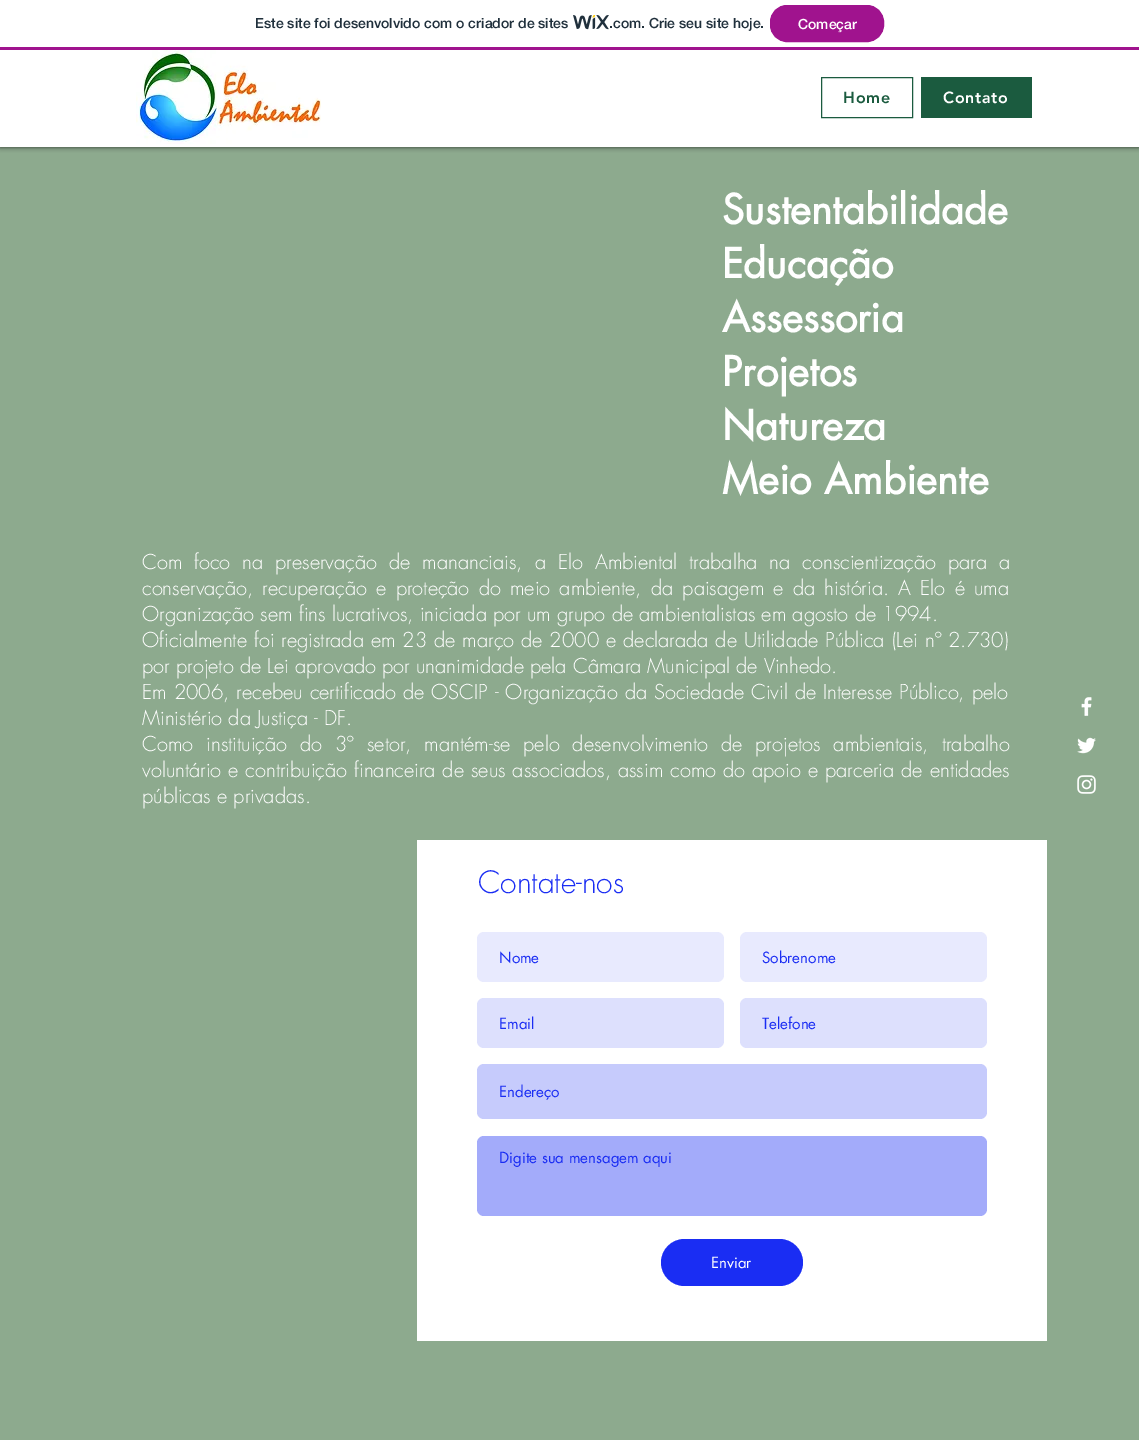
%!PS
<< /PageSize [1139 1440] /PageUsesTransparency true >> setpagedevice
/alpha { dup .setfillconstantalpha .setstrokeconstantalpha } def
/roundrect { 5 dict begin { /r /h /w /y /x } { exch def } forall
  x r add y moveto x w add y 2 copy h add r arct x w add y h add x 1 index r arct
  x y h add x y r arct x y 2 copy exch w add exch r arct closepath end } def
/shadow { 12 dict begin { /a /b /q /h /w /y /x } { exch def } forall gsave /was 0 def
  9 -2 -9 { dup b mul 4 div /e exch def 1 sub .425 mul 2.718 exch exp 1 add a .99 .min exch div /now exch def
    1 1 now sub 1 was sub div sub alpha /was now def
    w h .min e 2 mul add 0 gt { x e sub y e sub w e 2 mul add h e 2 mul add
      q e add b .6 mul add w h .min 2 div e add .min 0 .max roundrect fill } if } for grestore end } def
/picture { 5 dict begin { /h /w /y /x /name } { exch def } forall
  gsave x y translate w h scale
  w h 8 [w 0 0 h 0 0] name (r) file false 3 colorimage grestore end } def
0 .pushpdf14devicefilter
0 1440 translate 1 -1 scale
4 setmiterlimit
0.553 0.667 0.557 setrgbcolor
0 0 1139 1440 rectfill
0 setgray
0 50 1139 97 0 2.5 0.7 shadow
1 setgray
0 0 1139 47 rectfill
0.627 0.075 0.557 setrgbcolor
0 47 1139 3 rectfill
/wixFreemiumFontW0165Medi-Medium [14 0 0 -14 0 0] selectfont
0.125 0.188 0.235 setrgbcolor
255 28 moveto (Este site foi desenvolvido com o criador de sites) show
(img1.rgb) 573 15 36 15 picture
609 28 moveto (.com. Crie seu site hoje.) show
0.627 0.075 0.557 setrgbcolor
770.5 5.5 113 36 16.5 roundrect gsave fill grestore
stroke
1 setgray
798 29 moveto (Começar) show
0 50 1139 97 rectfill
(img2.rgb) 136 50 185 94 picture
0.106 0.357 0.247 setrgbcolor
821.5 77.5 91 40 rectstroke
/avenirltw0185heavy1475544-Black [16 0 0 -16 0 0] selectfont
843 103 moveto 0.75 0 (Home) ashow
921 77 111 41 rectfill
1 setgray
943 103 moveto 0.75 0 (Contato) ashow
/futura-Bold [40 0 0 -40 0 0] selectfont
722 224 moveto (Sustentabilidade) show
722 278 moveto (Educação) show
722 332 moveto (Assessoria) show
722 386 moveto (Projetos) show
722 440 moveto (Natureza) show
722 494 moveto (Meio Ambiente) show
/futura-Light [20 0 0 -20 0 0] selectfont
142 569 moveto 5.75 0 32 (Com foco na preservação de mananciais, a Elo Ambiental trabalha na conscientização para a) widthshow
142 595 moveto 3 0 32 (conservação, recuperação e proteção do meio ambiente, da paisagem e da história. A Elo é uma) widthshow
142 621 moveto (Organização sem fins lucrativos, iniciada por um grupo de ambientalistas em agosto de 1994.) show
142 647 moveto 0.75 0 32 (Oficialmente foi registrada em 23 de março de 2000 e declarada de Utilidade Pública \(Lei nº 2.730\)) widthshow
142 673 moveto (por projeto de Lei aprovado por unanimidade pela Câmara Municipal de Vinhedo.) show
142 699 moveto 0.75 0 32 (Em 2006, recebeu certificado de OSCIP - Organização da Sociedade Civil de Interesse Público, pelo) widthshow
142 725 moveto (Ministério da Justiça - DF.) show
142 751 moveto 6.75 0 32 (Como instituição do 3º setor, mantém-se pelo desenvolvimento de projetos ambientais, trabalho) widthshow
142 777 moveto 0.75 0 32 (voluntário e contribuição financeira de seus associados, assim como do apoio e parceria de entidades) widthshow
142 803 moveto (públicas e privadas.) show
417 840 630 501 rectfill
/futura-Light [30 0 0 -30 0 0] selectfont
0.102 0.176 0.953 setrgbcolor
478 893 moveto (Contate-nos) show
0.91 0.918 0.996 setrgbcolor
477 932 247 50 7 roundrect fill
/futura-Regular [15 0 0 -15 0 0] selectfont
0.102 0.176 0.953 setrgbcolor
499 963 moveto (Nome) show
0.91 0.918 0.996 setrgbcolor
740 932 247 50 7 roundrect fill
0.102 0.176 0.953 setrgbcolor
762 963 moveto (Sobrenome) show
0.867 0.878 0.992 setrgbcolor
477 998 247 50 7 roundrect fill
0.102 0.176 0.953 setrgbcolor
499 1029 moveto (Email) show
0.867 0.878 0.992 setrgbcolor
740 998 247 50 7 roundrect fill
0.102 0.176 0.953 setrgbcolor
762 1029 moveto (Telefone) show
0.776 0.796 0.988 setrgbcolor
477 1064 510 55 7 roundrect fill
0.102 0.176 0.953 setrgbcolor
499 1097 moveto (Endereço) show
0.639 0.671 0.98 setrgbcolor
477 1136 510 80 7 roundrect fill
0.102 0.176 0.953 setrgbcolor
499 1163 moveto (Digite sua mensagem aqui) show
661 1239 142 47 23.5 roundrect fill
1 setgray
711 1268 moveto (Enviar) show
(img3.rgb) 1081 697 11 19 picture
(img4.rgb) 1077 737 19 17 picture
(img5.rgb) 1077 775 19 19 picture
.poppdf14devicefilter showpage
